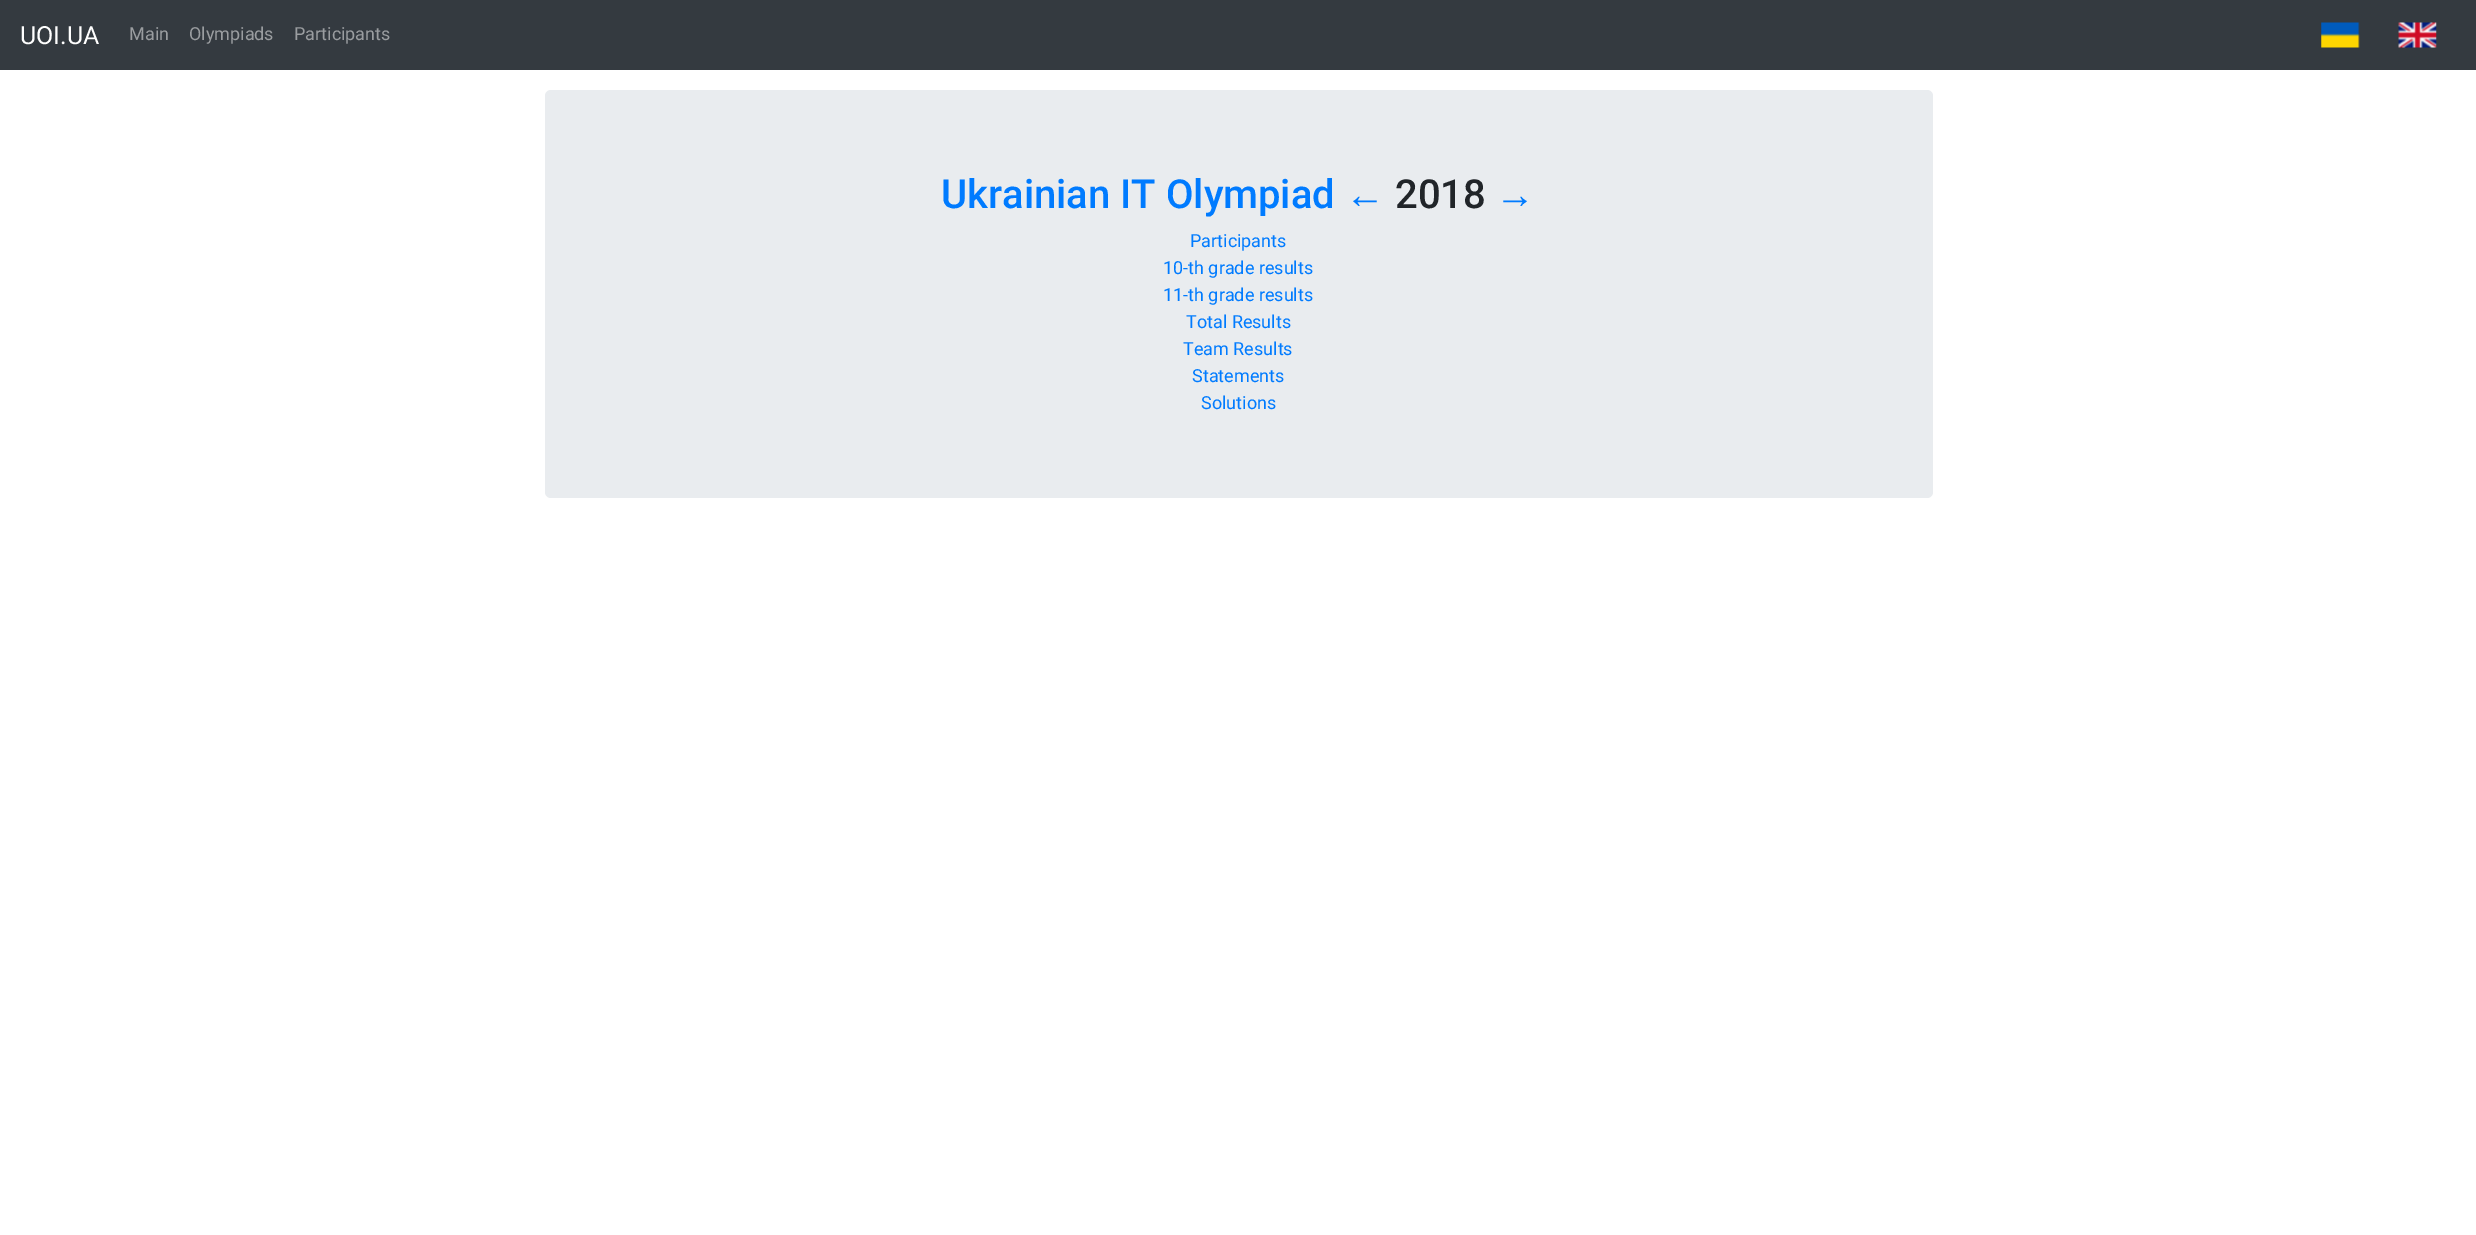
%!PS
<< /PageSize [2476 1235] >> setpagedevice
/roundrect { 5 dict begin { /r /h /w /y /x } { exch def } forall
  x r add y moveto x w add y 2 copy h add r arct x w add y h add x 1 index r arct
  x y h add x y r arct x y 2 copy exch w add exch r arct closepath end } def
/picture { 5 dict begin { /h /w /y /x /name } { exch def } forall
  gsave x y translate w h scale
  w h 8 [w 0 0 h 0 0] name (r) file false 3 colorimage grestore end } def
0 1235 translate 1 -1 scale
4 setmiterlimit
1 setgray
0 0 2476 1235 rectfill
0.204 0.227 0.251 setrgbcolor
0 0 2476 70 rectfill
/Roboto-Regular [25 0 0 -25 0 0] selectfont
1 setgray
20 44 moveto (UOI.UA) show
/Roboto-Regular [18 0 0 -18 0 0] selectfont
0.604 0.616 0.627 setrgbcolor
129 40 moveto (Main) show
189 40 moveto (Olympiads) show
294 40 moveto (Participants) show
(img1.rgb) 2321 22 39 26 picture
(img2.rgb) 2398 22 39 26 picture
0.914 0.925 0.937 setrgbcolor
545 90 1388 408 6 roundrect fill
/Roboto-Medium [40 0 0 -40 0 0] selectfont
0 0.482 1 setrgbcolor
941 208 moveto (Ukrainian IT Olympiad) show
/LiberationSans-Regular [40 0 0 -40 0 0] selectfont
1345 208 moveto (←) show
/Roboto-Medium [40 0 0 -40 0 0] selectfont
0.129 0.145 0.161 setrgbcolor
1395 208 moveto (2018) show
/LiberationSans-Regular [40 0 0 -40 0 0] selectfont
0 0.482 1 setrgbcolor
1495 208 moveto (→) show
/Roboto-Regular [18 0 0 -18 0 0] selectfont
1190 247 moveto (Participants) show
1163 274 moveto (10-th grade results) show
1163 301 moveto (11-th grade results) show
1186 328 moveto (Total Results) show
1183 355 moveto (Team Results) show
1192 382 moveto (Statements) show
1201 409 moveto (Solutions) show
showpage
